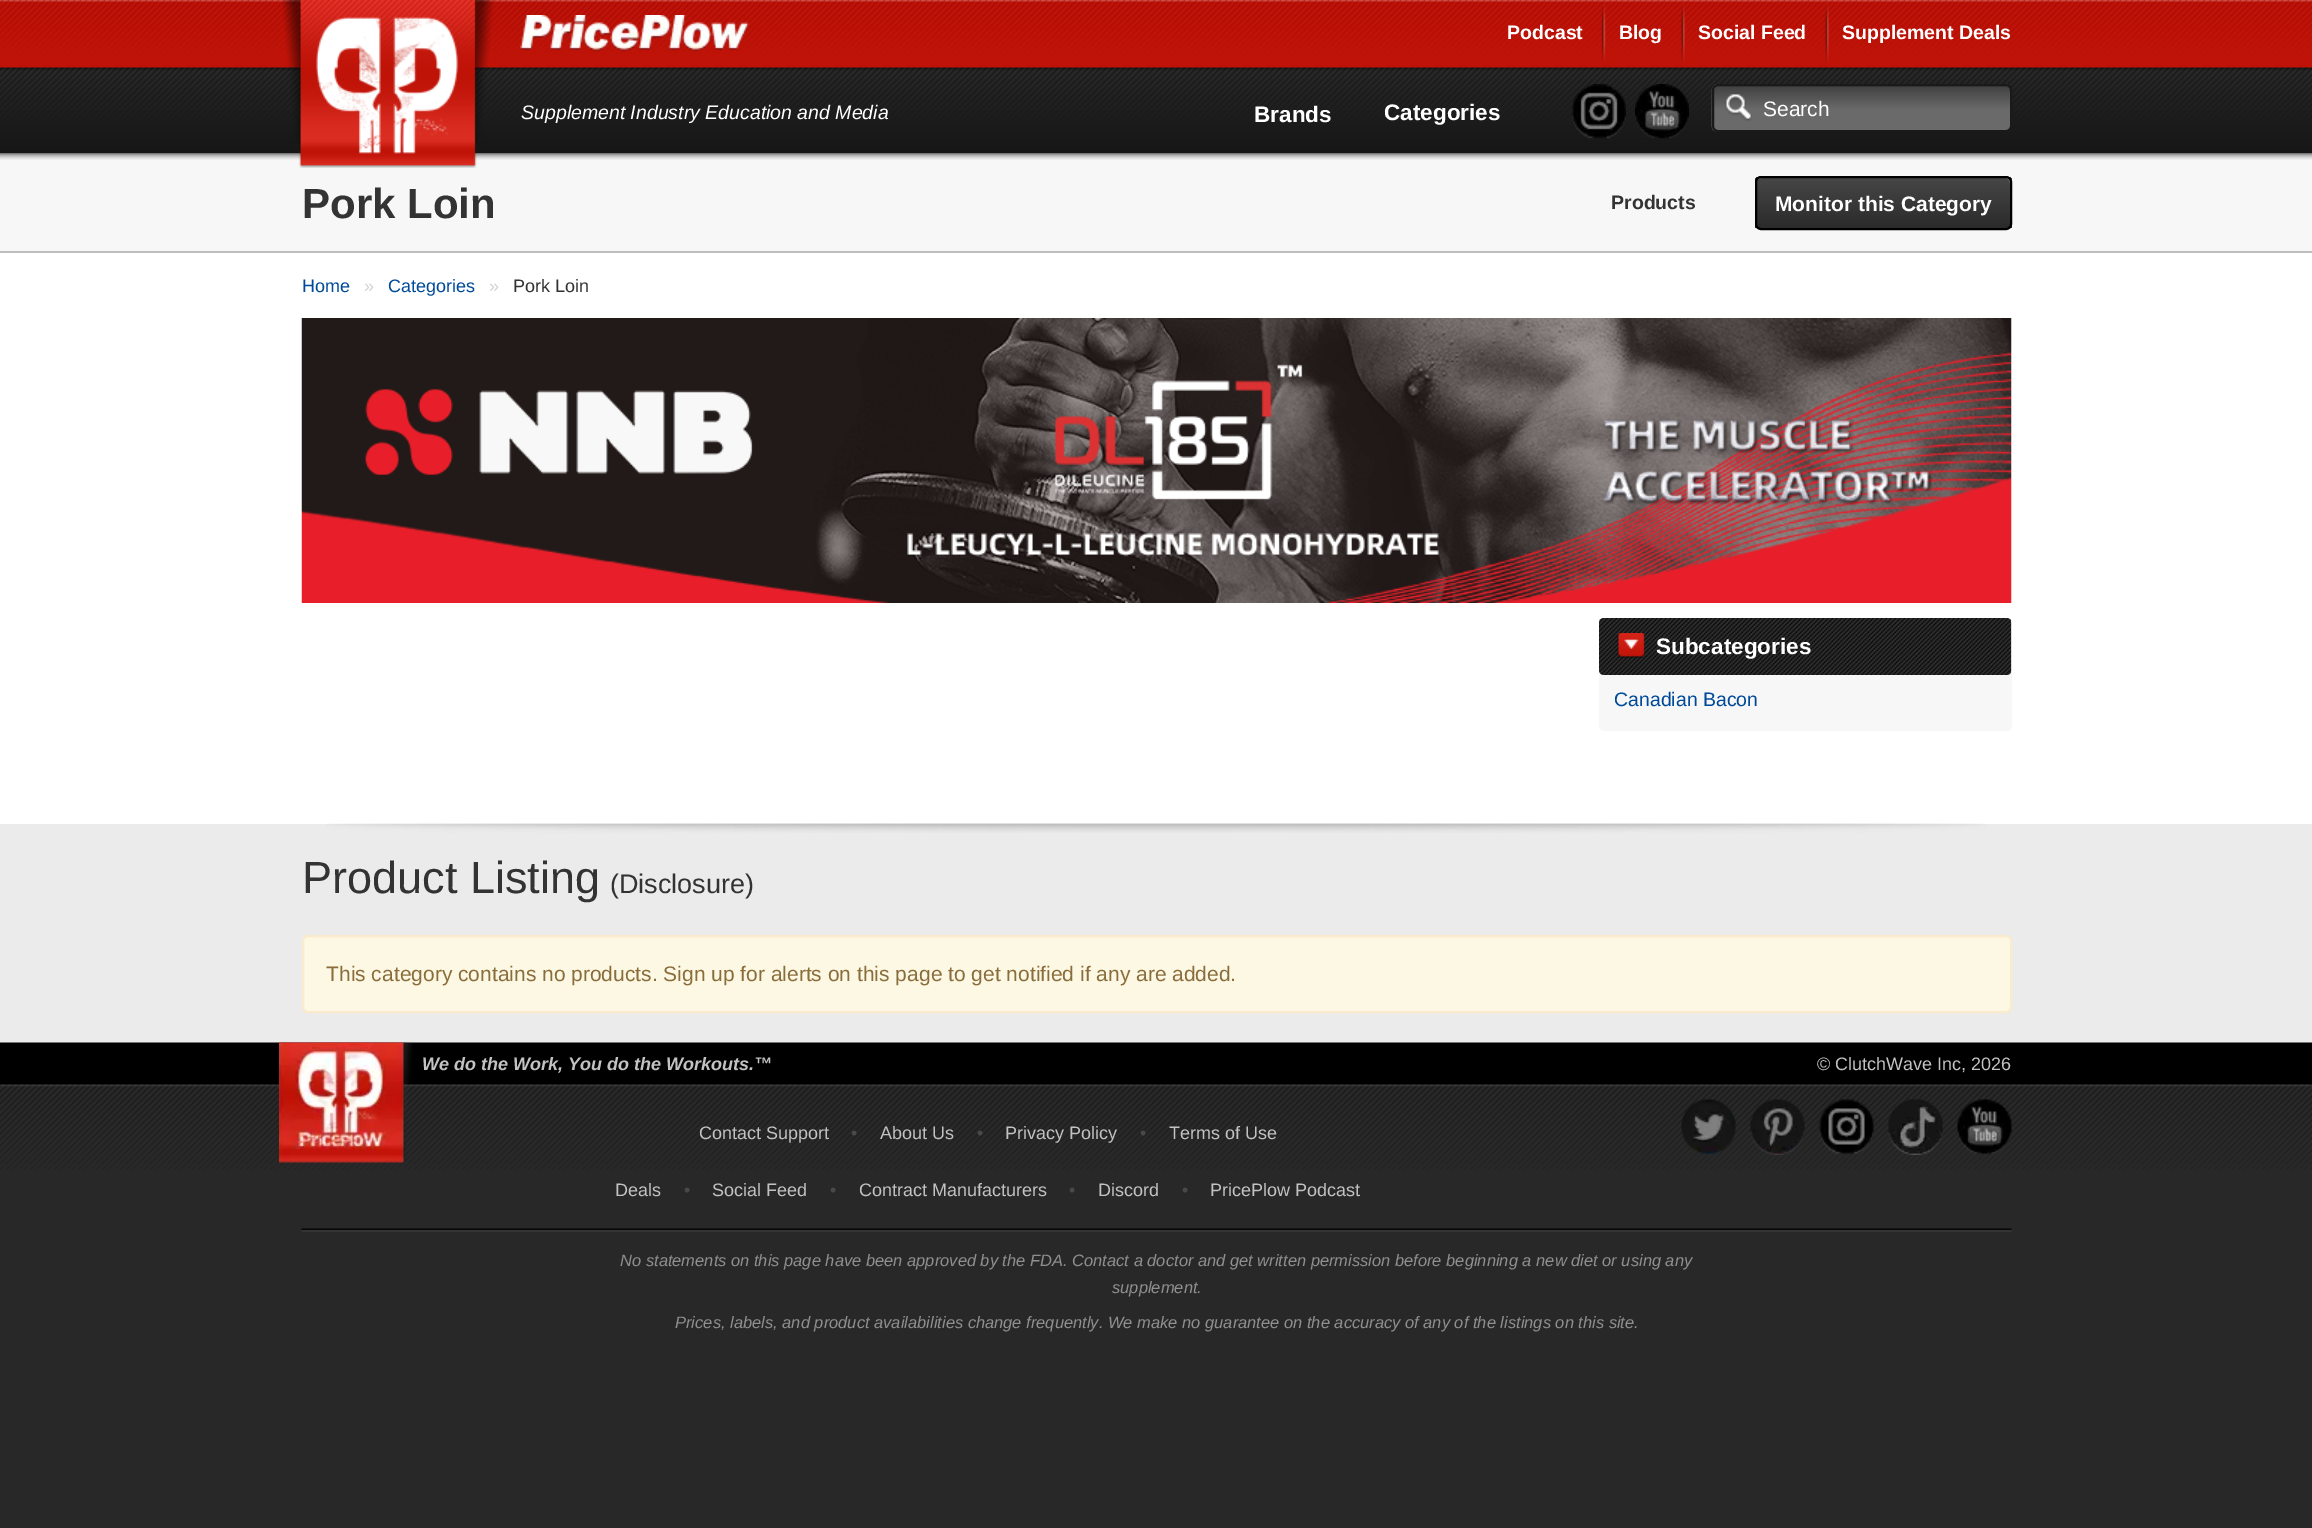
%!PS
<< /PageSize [2312 1528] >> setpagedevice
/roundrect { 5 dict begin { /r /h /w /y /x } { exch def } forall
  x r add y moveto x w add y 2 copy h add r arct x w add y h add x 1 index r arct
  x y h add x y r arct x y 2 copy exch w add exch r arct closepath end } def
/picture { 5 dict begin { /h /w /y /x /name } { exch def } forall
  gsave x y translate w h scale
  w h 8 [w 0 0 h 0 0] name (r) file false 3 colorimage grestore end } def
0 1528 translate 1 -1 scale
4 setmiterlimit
0.157 setgray
0 0 2312 1528 rectfill
0.969 setgray
0 153 2312 98 rectfill
(img1.rgb) 0 0 2312 160 picture
(img2.rgb) 281 0 213 168 picture
(img3.rgb) 520 15 229 37 picture
/LiberationSans-Bold [19.5 0 0 -19.5 0 0] selectfont
1 setgray
1507 39 moveto (Podcast) show
(img4.rgb) 1601 3 5 60 picture
1619 39 moveto (Blog) show
(img5.rgb) 1681 3 4 60 picture
1698 39 moveto (Social Feed) show
(img6.rgb) 1825 3 4 60 picture
1842 39 moveto (Supplement Deals) show
/LiberationSans-Italic [19.5 0 0 -19.5 0 0] selectfont
521 119 moveto (Supplement Industry Education and Media) show
/LiberationSans-Bold [22.5 0 0 -22.5 0 0] selectfont
1254 122 moveto (Brands) show
1384 120 moveto (Categories) show
(img7.rgb) 1572 84 54 55 picture
(img8.rgb) 1635 84 54 55 picture
(img9.rgb) 1711 84 301 48 picture
(img10.rgb) 1711 84 301 48 picture
0.239 setgray
newpath 1718 87 moveto 2006 87 lineto 2009 88 lineto 2010 92 lineto 2010 91 lineto 2010 88 2008 86 2005 86 curveto 1718 86 lineto 1715 86 1713 88 1713 91 curveto 1713 92 lineto 1713 89 1715 87 1718 87 curveto closepath fill
0.102 setgray
2 setlinewidth
1713 85 298 46 5 roundrect stroke
/LiberationSans-Regular [21 0 0 -21 0 0] selectfont
1 setgray
1763 116 moveto (Search) show
0.745 setgray
0 251 2312 2 rectfill
/LiberationSans-Bold [42 0 0 -42 0 0] selectfont
0.2 setgray
302 218 moveto (Pork Loin) show
/LiberationSans-Bold [19.5 0 0 -19.5 0 0] selectfont
1611 209 moveto (Products) show
gsave
1755 176 257 54 6 roundrect clip newpath
gsave newpath 1755 177 moveto 2012 177 lineto 2012 228 lineto 1755 228 lineto closepath clip newpath
<< /ShadingType 2 /ColorSpace /DeviceRGB /Coords [1883 177 1883 228] /Extend [true true] /Function << /FunctionType 2 /Domain [0 1] /C0 [0.278 0.278 0.278] /C1 [0.169 0.169 0.169] /N 1 >> >> shfill grestore
grestore
0.6 setgray
newpath 1761 178 moveto 2006 178 lineto 2008 178 2010 181 2010 183 curveto 2010 182 lineto 2010 179 2008 177 2005 177 curveto 1762 177 lineto 1760 177 1758 178 1757 180 curveto 1758 179 1760 178 1761 178 curveto closepath fill
0 setgray
1756 177 255 52 5 roundrect stroke
/LiberationSans-Bold [21 0 0 -21 0 0] selectfont
1 setgray
1775 211 moveto (Monitor this Category) show
0 253 2312 571 rectfill
/LiberationSans-Regular [18 0 0 -18 0 0] selectfont
0 0.294 0.6 setrgbcolor
302 292 moveto (Home) show
0.824 setgray
364 292 moveto (») show
0 0.294 0.6 setrgbcolor
388 292 moveto (Categories) show
0.824 setgray
489 292 moveto (») show
0.2 setgray
513 292 moveto (Pork Loin) show
(img11.rgb) 301 318 1711 285 picture
0.969 setgray
1599 618 413 113 5 roundrect fill
(img12.rgb) 1599 618 413 57 picture
(img13.rgb) 1617 633 28 25 picture
/LiberationSans-Bold [22.5 0 0 -22.5 0 0] selectfont
1 setgray
1656 654 moveto (Subcategories) show
/LiberationSans-Regular [19.5 0 0 -19.5 0 0] selectfont
0 0.294 0.6 setrgbcolor
1614 706 moveto (Canadian Bacon) show
0.922 setgray
0 824 2312 219 rectfill
(img14.rgb) 326 823 1661 10 picture
/LiberationSans-Regular [45 0 0 -45 0 0] selectfont
0.2 setgray
302 893 moveto (Product Listing) show
/LiberationSans-Regular [27 0 0 -27 0 0] selectfont
610 893 moveto (\(Disclosure\)) show
0.988 0.973 0.89 setrgbcolor
303 936 1708 76 5 roundrect gsave fill grestore
0.98 0.922 0.8 setrgbcolor
stroke
/LiberationSans-Regular [21 0 0 -21 0 0] selectfont
0.541 0.427 0.231 setrgbcolor
326 981 moveto (This category contains no products. Sign up for alerts on this page to get notified if any are added.) show
(img15.rgb) 0 1042 2312 128 picture
(img16.rgb) 279 1042 134 121 picture
/LiberationSans-BoldItalic [18 0 0 -18 0 0] selectfont
0.761 setgray
422 1070 moveto (We do the Work, You do the Workouts.™) show
/LiberationSans-Regular [18 0 0 -18 0 0] selectfont
1817 1070 moveto (© ClutchWave Inc, 2026) show
(img17.rgb) 301 1228 1711 4 picture
699 1139 moveto (Contact Support) show
0.286 setgray
851 1139 moveto (•) show
0.761 setgray
880 1139 moveto (About Us) show
0.286 setgray
977 1139 moveto (•) show
0.761 setgray
1005 1139 moveto (Privacy Policy) show
0.286 setgray
1140 1139 moveto (•) show
0.761 setgray
1169 1139 moveto (Terms of Use) show
615 1196 moveto (Deals) show
0.286 setgray
684 1196 moveto (•) show
0.761 setgray
712 1196 moveto (Social Feed) show
0.286 setgray
830 1196 moveto (•) show
0.761 setgray
859 1196 moveto (Contract Manufacturers) show
0.286 setgray
1069 1196 moveto (•) show
0.761 setgray
1098 1196 moveto (Discord) show
0.286 setgray
1182 1196 moveto (•) show
0.761 setgray
1210 1196 moveto (PricePlow Podcast) show
(img18.rgb) 1681 1099 55 55 picture
(img19.rgb) 1750 1099 55 56 picture
(img20.rgb) 1819 1099 55 55 picture
(img21.rgb) 1888 1099 55 56 picture
(img22.rgb) 1957 1099 55 55 picture
/LiberationSans-Italic [16.5 0 0 -16.5 0 0] selectfont
0.561 setgray
620 1266 moveto (No statements on this page have been approved by the FDA. Contact a doctor and get written permission before beginning a new diet or using any) show
1112 1293 moveto (supplement.) show
675 1328 moveto (Prices, labels, and product availabilities change frequently. We make no guarantee on the accuracy of any of the listings on this site.) show
showpage
